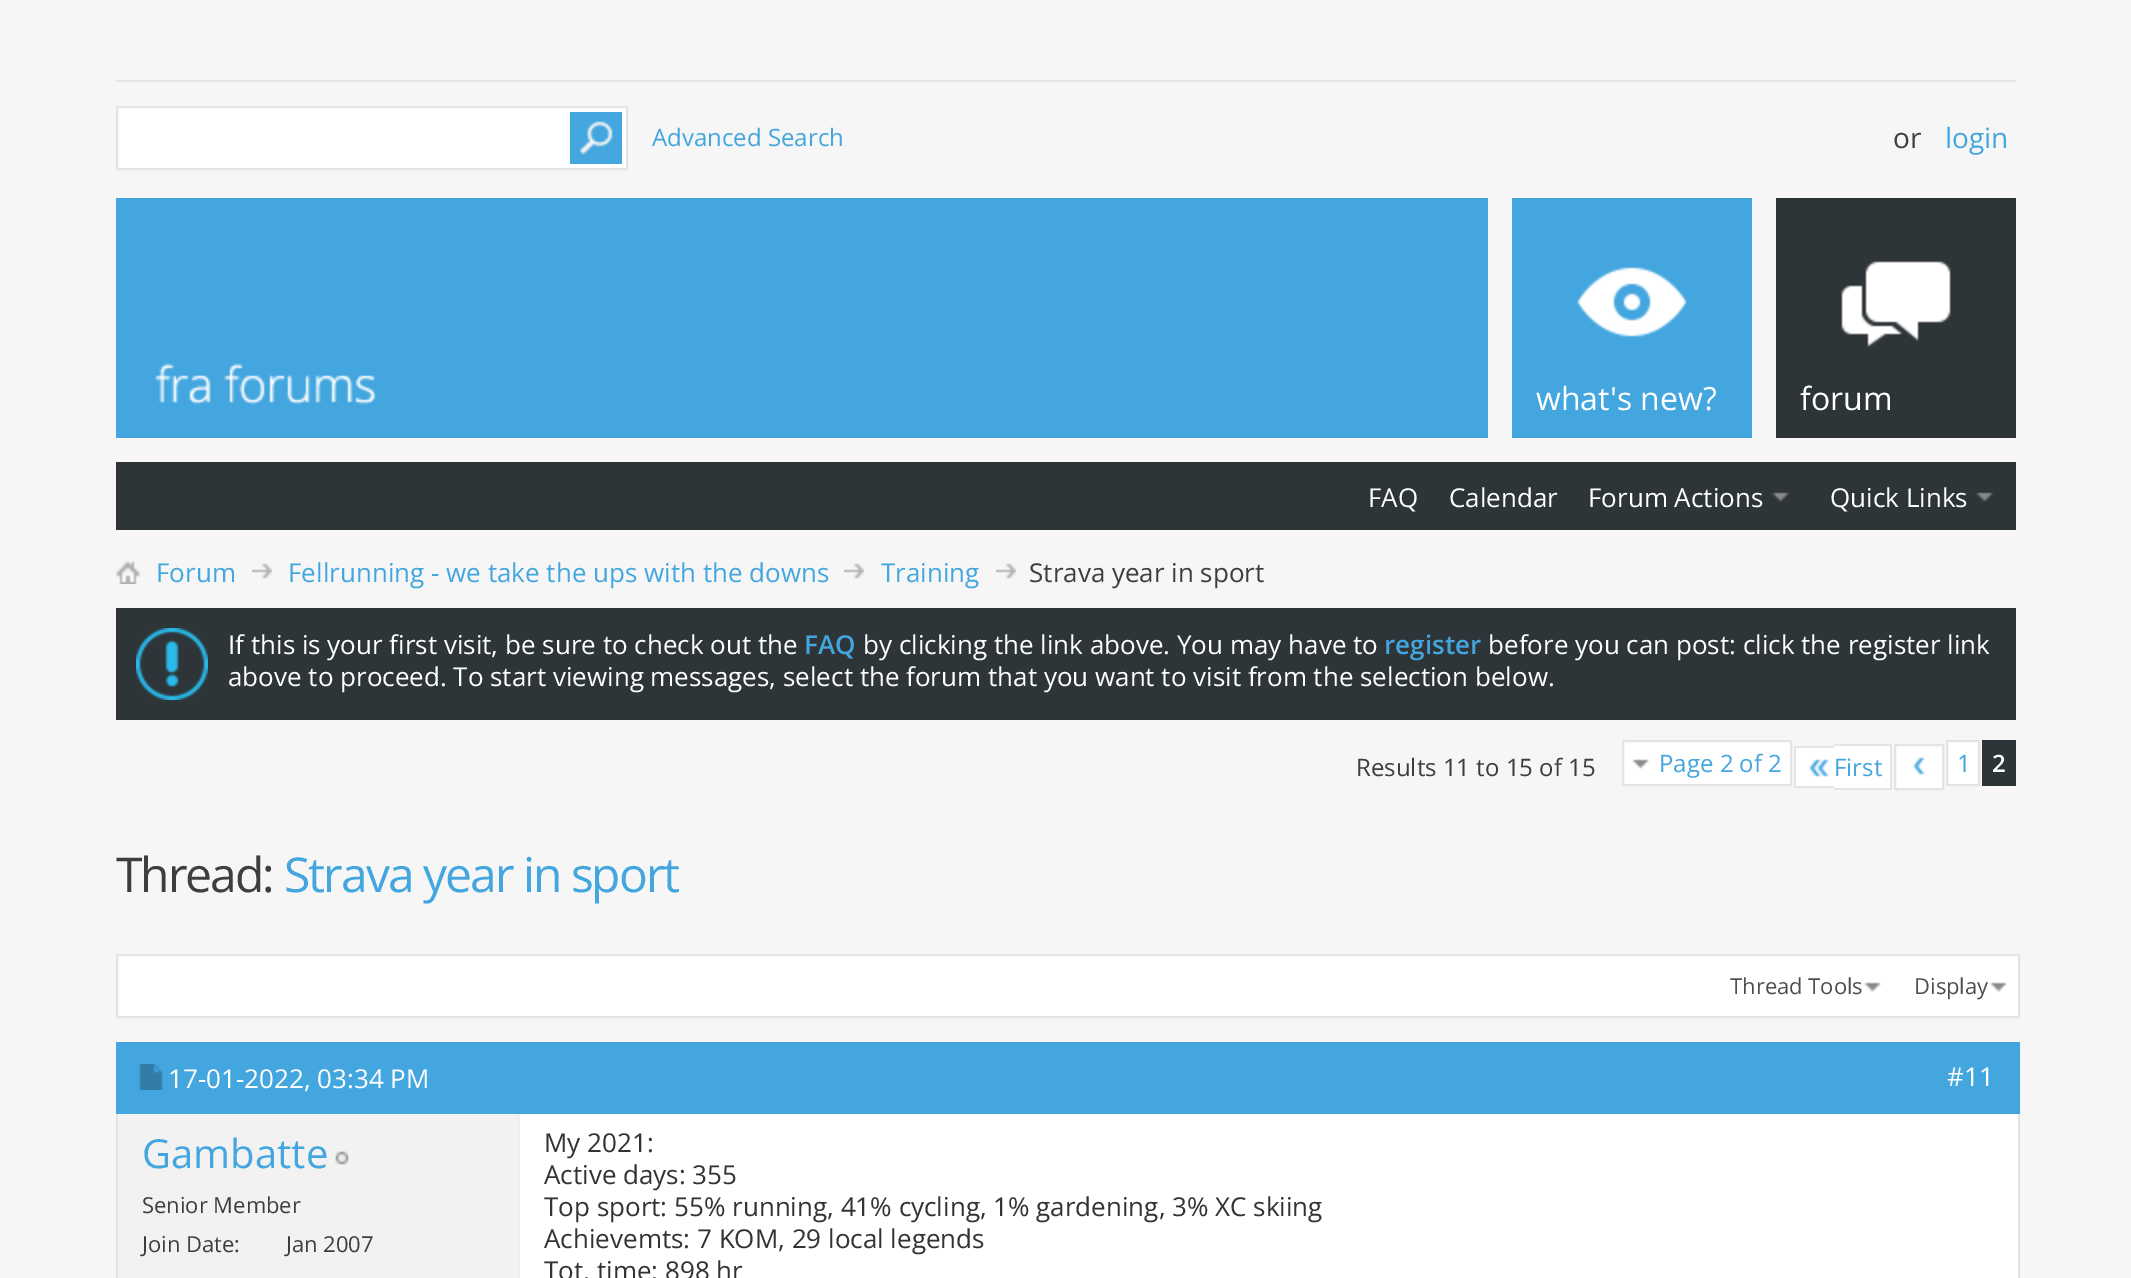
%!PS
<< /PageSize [2131 1278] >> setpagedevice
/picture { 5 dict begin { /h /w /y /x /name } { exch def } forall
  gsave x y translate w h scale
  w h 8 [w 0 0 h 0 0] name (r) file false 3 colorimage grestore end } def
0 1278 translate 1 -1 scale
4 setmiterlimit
0.965 setgray
0 0 2131 1278 rectfill
0.894 setgray
116 80 1900 2 rectfill
1 setgray
newpath 117 107 moveto 627 107 lineto 627 169 lineto 117 169 lineto closepath gsave fill grestore
0.894 setgray
2 setlinewidth
stroke
(img1.rgb) 570 112 52 52 picture
/OpenSans-Regular [24 0 0 -24 0 0] selectfont
0.263 0.651 0.875 setrgbcolor
652 146 moveto (Advanced Search) show
/OpenSans-Regular [28 0 0 -28 0 0] selectfont
0.243 setgray
1893 148 moveto (or) show
0.263 0.651 0.875 setrgbcolor
1945 148 moveto (login) show
116 198 1636 240 rectfill
(img2.rgb) 155 363 222 42 picture
0.965 setgray
1488 198 24 240 rectfill
(img3.rgb) 1577 267 110 70 picture
/OpenSans-Regular [32 0 0 -32 0 0] selectfont
1 setgray
1536 410 moveto (what's new?) show
0.18 0.208 0.224 setrgbcolor
1776 198 240 240 rectfill
(img4.rgb) 1841 261 110 86 picture
1 setgray
1800 410 moveto (forum) show
0.18 0.208 0.224 setrgbcolor
116 462 1900 68 rectfill
/OpenSans-Regular [26 0 0 -26 0 0] selectfont
1 setgray
1368 507 moveto (FAQ) show
1449 507 moveto (Calendar) show
1588 507 moveto (Forum Actions) show
(img5.rgb) 1771 492 18 10 picture
1830 507 moveto (Quick Links) show
(img5.rgb) 1975 492 18 10 picture
(img6.rgb) 116 561 24 23 picture
(img7.rgb) 252 563 20 16 picture
0.263 0.651 0.875 setrgbcolor
156 582 moveto (Forum) show
(img7.rgb) 844 563 20 16 picture
288 582 moveto (Fellrunning - we take the ups with the downs) show
(img7.rgb) 996 563 20 16 picture
881 582 moveto (Training) show
0.243 setgray
1029 582 moveto (Strava year in sport) show
0.18 0.208 0.224 setrgbcolor
116 608 1900 112 rectfill
(img8.rgb) 136 628 72 72 picture
1 setgray
228 654 moveto (If this is your first visit, be sure to check out the) show
/OpenSans-SemiBold [26 0 0 -26 0 0] selectfont
0.263 0.651 0.875 setrgbcolor
804 654 moveto (FAQ) show
/OpenSans-Regular [26 0 0 -26 0 0] selectfont
1 setgray
863 654 moveto (by clicking the link above. You may have to) show
/OpenSans-SemiBold [26 0 0 -26 0 0] selectfont
0.263 0.651 0.875 setrgbcolor
1384 654 moveto (register) show
/OpenSans-Regular [26 0 0 -26 0 0] selectfont
1 setgray
1488 654 moveto (before you can post: click the register link) show
228 686 moveto (above to proceed. To start viewing messages, select the forum that you want to visit from the selection below.) show
/OpenSans-Regular [24 0 0 -24 0 0] selectfont
0.243 setgray
1356 776 moveto (Results 11 to 15 of 15) show
1 setgray
1624 742 166 42 rectfill
(img9.rgb) 1631 759 18 10 picture
0.894 setgray
1623 741 168 44 rectstroke
0.263 0.651 0.875 setrgbcolor
1659 772 moveto (Page 2 of 2) show
1 setgray
1796 748 38 38 rectfill
(img10.rgb) 1809 759 20 18 picture
1834 746 56 42 rectfill
0.263 0.651 0.875 setrgbcolor
1834 776 moveto (First) show
0.894 setgray
1794 746 40 2 rectfill
1794 786 40 2 rectfill
1794 746 2 42 rectfill
1834 744 58 2 rectfill
1890 744 2 46 rectfill
1834 788 58 2 rectfill
1 setgray
newpath 1895 745 moveto 1943 745 lineto 1943 789 lineto 1895 789 lineto closepath gsave fill grestore
0.894 setgray
stroke
(img11.rgb) 1913 757 12 18 picture
1 setgray
newpath 1947 741 moveto 1979 741 lineto 1979 785 lineto 1947 785 lineto closepath gsave fill grestore
0.894 setgray
stroke
0.263 0.651 0.875 setrgbcolor
1957 772 moveto (1) show
0.18 0.208 0.224 setrgbcolor
1982 740 34 46 rectfill
/OpenSans-SemiBold [24 0 0 -24 0 0] selectfont
1 setgray
1992 772 moveto (2) show
/OpenSans-Regular [48 0 0 -48 0 0] selectfont
0.243 setgray
116 892 moveto -2 0 (Thread:) ashow
0.263 0.651 0.875 setrgbcolor
284 892 moveto -2 0 (Strava year in sport) ashow
1 setgray
newpath 117 955 moveto 2019 955 lineto 2019 1017 lineto 117 1017 lineto closepath gsave fill grestore
0.894 setgray
stroke
(img12.rgb) 1863 982 18 10 picture
/OpenSans-Regular [22 0 0 -22 0 0] selectfont
0.306 setgray
1730 994 moveto (Thread Tools) show
(img12.rgb) 1989 982 18 10 picture
1914 994 moveto (Display) show
0.894 setgray
117 1043 1902 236 rectstroke
0.263 0.651 0.875 setrgbcolor
116 1042 1904 72 rectfill
(img13.rgb) 139 1064 24 26 picture
/OpenSans-Regular [26 0 0 -26 0 0] selectfont
1 setgray
168 1088 moveto (17-01-2022, 03:34 PM) show
1947 1086 moveto (#11) show
0.949 setgray
118 1114 400 164 rectfill
/OpenSans-Regular [40 0 0 -40 0 0] selectfont
0.263 0.651 0.875 setrgbcolor
142 1168 moveto (Gambatte) show
(img14.rgb) 335 1151 14 14 picture
/OpenSans-Regular [22 0 0 -22 0 0] selectfont
0.243 setgray
142 1213 moveto (Senior Member) show
142 1252 moveto (Join Date:) show
286 1252 moveto (Jan 2007) show
1 setgray
520 1114 1498 164 rectfill
0.937 setgray
518 1114 2 164 rectfill
/OpenSans-Regular [26 0 0 -26 0 0] selectfont
0.2 setgray
544 1152 moveto (My 2021:) show
544 1184 moveto (Active days: 355) show
544 1216 moveto (Top sport: 55% running, 41% cycling, 1% gardening, 3% XC skiing) show
544 1248 moveto (Achievemts: 7 KOM, 29 local legends) show
544 1280 moveto (Tot. time: 898 hr) show
showpage
